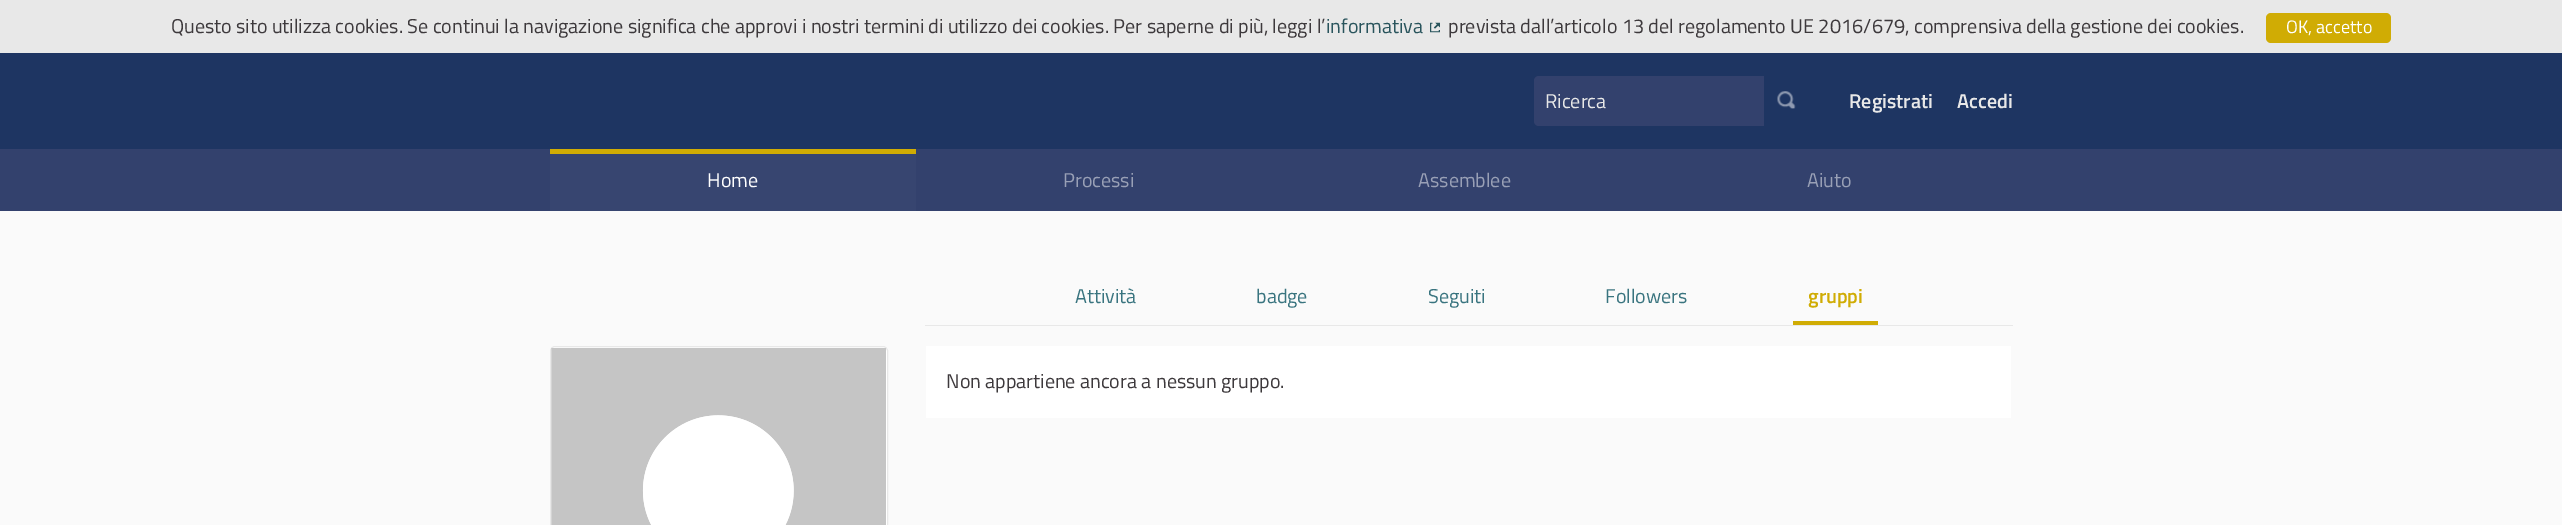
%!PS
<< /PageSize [2562 525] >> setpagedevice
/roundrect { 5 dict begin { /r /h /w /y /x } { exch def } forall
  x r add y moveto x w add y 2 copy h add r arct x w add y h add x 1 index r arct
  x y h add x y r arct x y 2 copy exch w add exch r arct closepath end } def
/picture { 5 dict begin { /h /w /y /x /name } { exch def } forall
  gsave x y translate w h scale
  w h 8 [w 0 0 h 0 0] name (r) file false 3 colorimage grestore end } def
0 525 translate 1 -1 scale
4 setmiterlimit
0.98 setgray
0 0 2562 525 rectfill
0.91 setgray
0 0 2562 53 rectfill
/TitilliumWeb-Regular [20 0 0 -20 0 0] selectfont
0.239 0.224 0.235 setrgbcolor
171 33 moveto (Questo sito utilizza cookies. Se continui la navigazione significa che approvi i nostri termini di utilizzo dei cookies. Per saperne di più, leggi l’) show
0.161 0.329 0.361 setrgbcolor
1326 33 moveto (informativa) show
(img1.rgb) 1430 22 10 11 picture
0.239 0.224 0.235 setrgbcolor
1448 33 moveto (prevista dall’articolo 13 del regolamento UE 2016/679, comprensiva della gestione dei cookies.) show
0.816 0.675 0.016 setrgbcolor
2266 13 125 30 5 roundrect fill
/TitilliumWeb-Regular [18 0 0 -18 0 0] selectfont
1 setgray
2286 33 moveto (OK, accetto) show
0.118 0.208 0.384 setrgbcolor
0 53 2562 96 rectfill
0.2 0.255 0.427 setrgbcolor
newpath 1539 76 moveto 1764 76 lineto 1764 126 lineto 1539 126 lineto 1536 126 1534 124 1534 121 curveto 1534 81 lineto 1534 78 1536 76 1539 76 curveto closepath fill
/TitilliumWeb-Regular [20 0 0 -20 0 0] selectfont
0.91 setgray
1545 108 moveto (Ricerca) show
(img2.rgb) 1777 91 19 18 picture
/TitilliumWeb-SemiBold [20 0 0 -20 0 0] selectfont
1849 108 moveto (Registrati) show
1957 108 moveto (Accedi) show
0.2 0.255 0.427 setrgbcolor
0 149 2562 62 rectfill
0.216 0.271 0.439 setrgbcolor
550 154 366 57 rectfill
0.816 0.675 0.016 setrgbcolor
550 149 366 5 rectfill
/TitilliumWeb-Regular [20 0 0 -20 0 0] selectfont
1 setgray
707 187 moveto (Home) show
0.6 0.627 0.714 setrgbcolor
1063 187 moveto (Processi) show
1418 187 moveto (Assemblee) show
1807 187 moveto (Aiuto) show
0.91 setgray
925 325 1088 1 rectfill
0.224 0.455 0.498 setrgbcolor
1075 303 moveto (Attività) show
1256 303 moveto (badge) show
1428 303 moveto (Seguiti) show
1605 303 moveto (Followers) show
0.816 0.675 0.016 setrgbcolor
1793 321 85 4 rectfill
/TitilliumWeb-SemiBold [20 0 0 -20 0 0] selectfont
1808 303 moveto (gruppi) show
1 setgray
550.5 346.5 337 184 4.5 roundrect gsave fill grestore
0.91 setgray
stroke
(img3.rgb) 551 348 335 177 picture
1 setgray
926 346 1085 72 rectfill
/TitilliumWeb-Regular [20 0 0 -20 0 0] selectfont
0.239 0.224 0.235 setrgbcolor
946 388 moveto (Non appartiene ancora a nessun gruppo.) show
showpage
